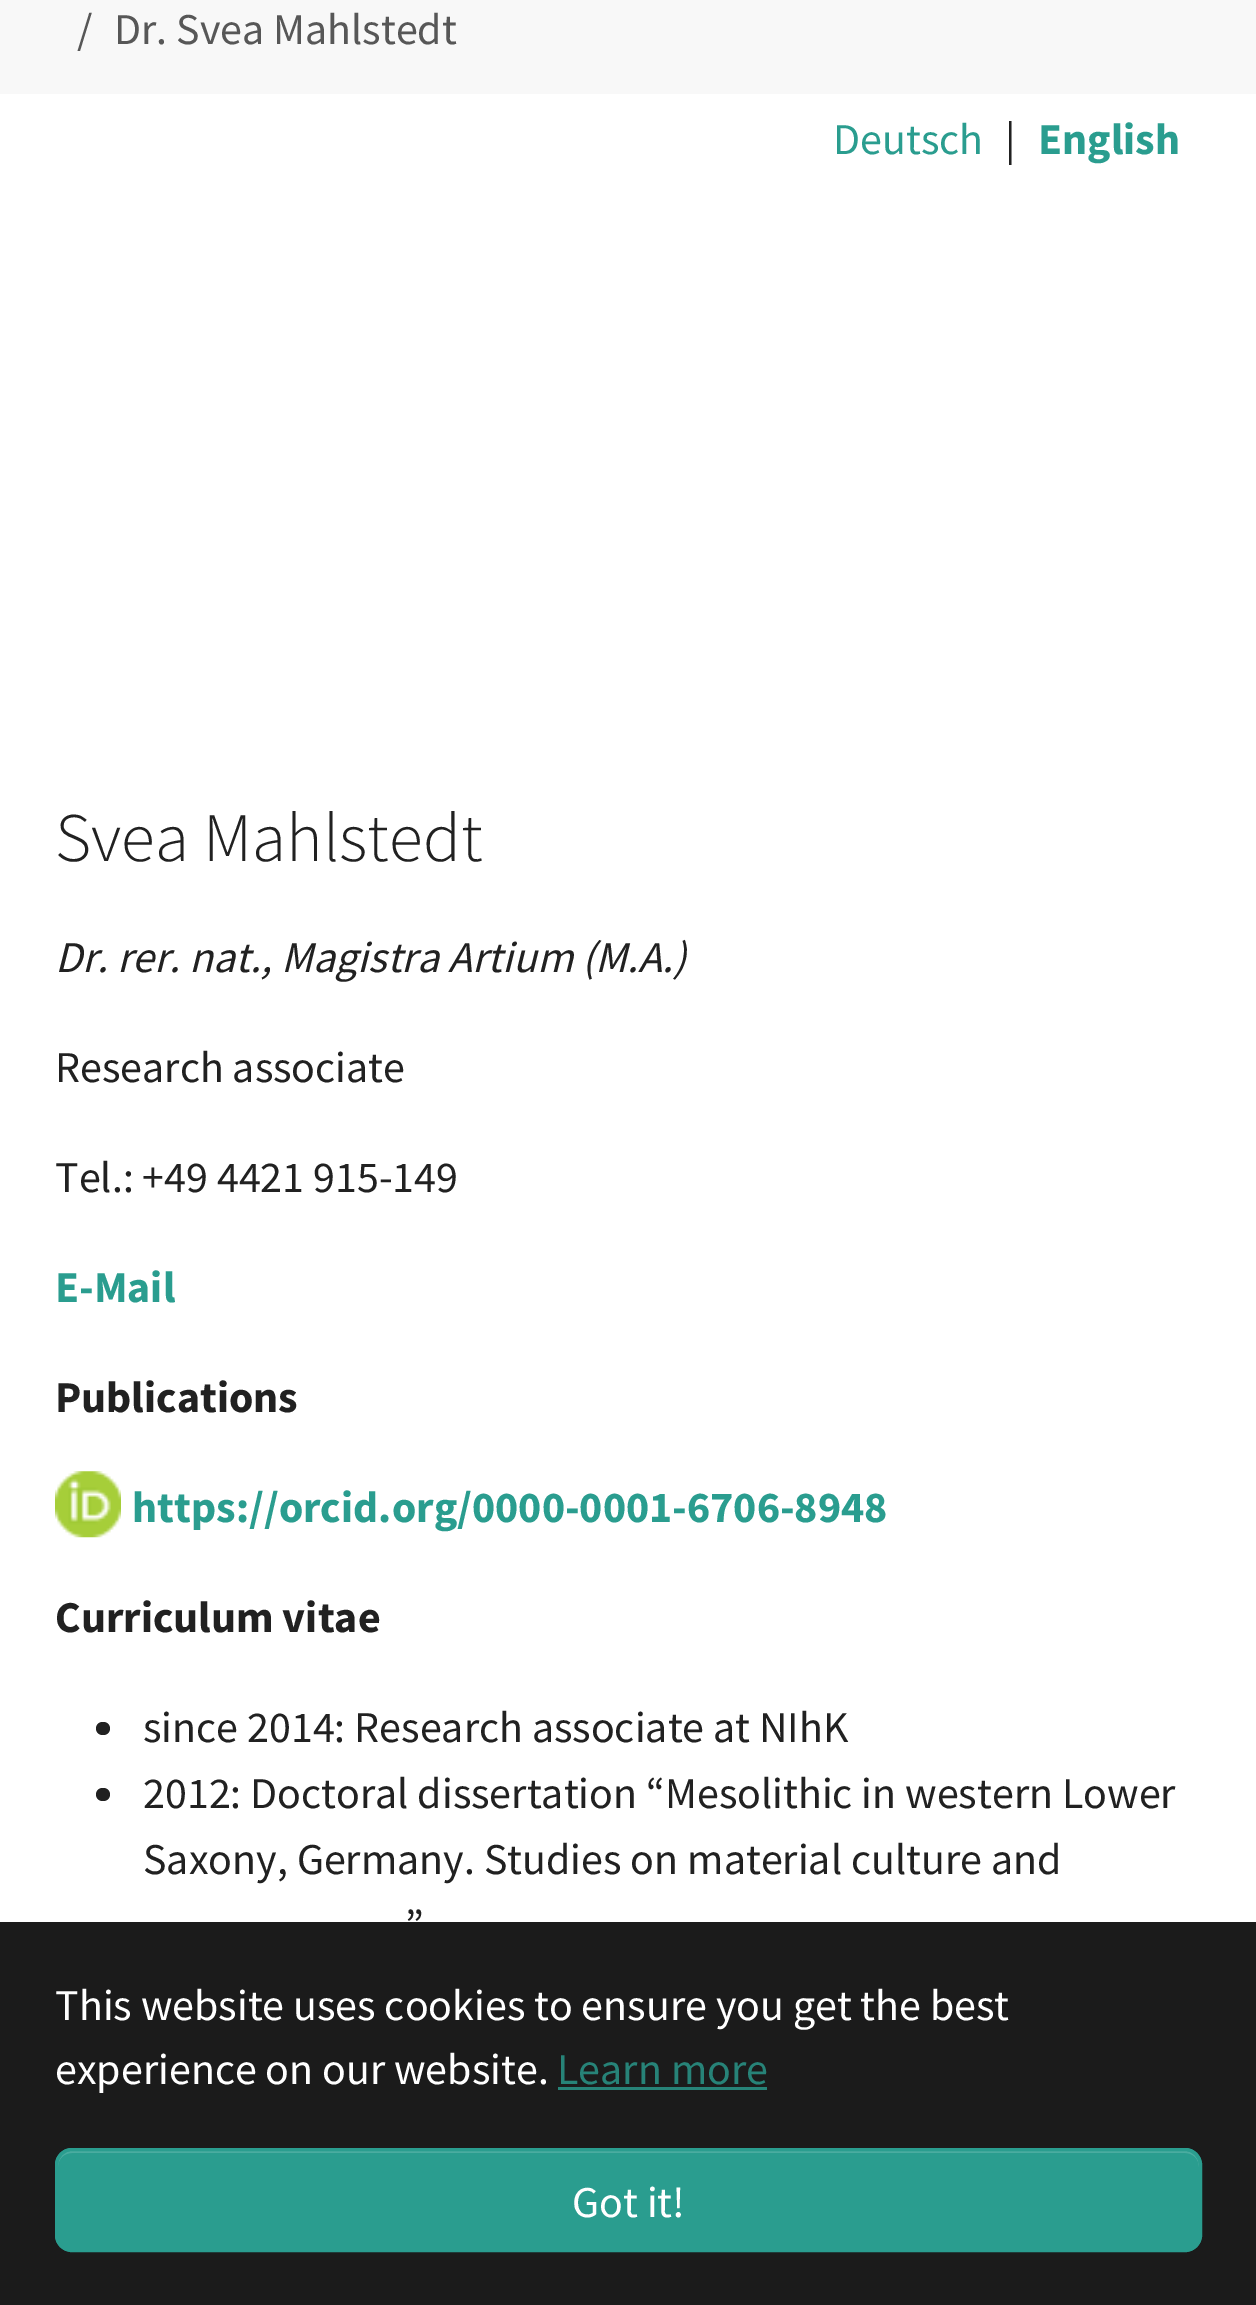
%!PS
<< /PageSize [1256 2305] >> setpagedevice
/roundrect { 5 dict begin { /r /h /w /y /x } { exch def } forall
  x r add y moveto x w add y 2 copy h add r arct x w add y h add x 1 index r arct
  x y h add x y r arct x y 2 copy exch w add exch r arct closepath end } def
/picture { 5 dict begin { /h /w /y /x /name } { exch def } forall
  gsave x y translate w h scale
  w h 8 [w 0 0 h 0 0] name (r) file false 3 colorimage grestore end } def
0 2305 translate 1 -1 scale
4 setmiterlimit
1 setgray
0 0 1256 2305 rectfill
0.973 setgray
0 0 1256 94 rectfill
/SourceSansPro-Regular [44 0 0 -44 0 0] selectfont
0.341 setgray
77 44 moveto (/) show
114 44 moveto (Dr. Svea Mahlstedt) show
0.165 0.616 0.561 setrgbcolor
833 154 moveto (Deutsch) show
0.129 setgray
1005 154 moveto (|) show
/SourceSansPro-Bold [44 0 0 -44 0 0] selectfont
0.165 0.616 0.561 setrgbcolor
1038 154 moveto (English) show
/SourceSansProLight-Light [69.5 0 0 -69.5 0 0] selectfont
0.129 setgray
55 861 moveto (Svea Mahlstedt) show
/SourceSansPro-Italic [44 0 0 -44 0 0] selectfont
55 972 moveto (Dr. rer. nat., Magistra Artium \(M.A.\)) show
/SourceSansPro-Regular [44 0 0 -44 0 0] selectfont
55 1082 moveto (Research associate) show
55 1192 moveto (Tel.: +49 4421 915-149) show
/SourceSansPro-Bold [44 0 0 -44 0 0] selectfont
0.165 0.616 0.561 setrgbcolor
55 1302 moveto (E-Mail) show
0.129 setgray
55 1412 moveto (Publications) show
(img1.rgb) 55 1471 66 67 picture
0.165 0.616 0.561 setrgbcolor
132 1522 moveto (https://orcid.org/0000-0001-6706-8948) show
0.129 setgray
55 1632 moveto (Curriculum vitae) show
96 1722 14 13 6.5 roundrect fill
/SourceSansPro-Regular [44 0 0 -44 0 0] selectfont
143 1742 moveto (since 2014: Research associate at NIhK) show
96 1788 14 13 6.5 roundrect fill
143 1808 moveto (2012: Doctoral dissertation “Mesolithic in western Lower) show
143 1874 moveto (Saxony, Germany. Studies on material culture and) show
405 1940 moveto (”) show
0.106 setgray
0 1922 1256 383 rectfill
1 setgray
55 2020 moveto (This website uses cookies to ensure you get the best) show
55 2084 moveto (experience on our website.) show
0.153 0.514 0.471 setrgbcolor
557 2084 moveto (Learn more) show
558 2087 209 3 rectfill
0.165 0.616 0.561 setrgbcolor
55 2148 1147 104 17 roundrect fill
0.29 0.675 0.627 setrgbcolor
newpath 72 2153 moveto 1185 2153 lineto 1193 2153 1199 2159 1199 2167 curveto 1199 2159 1194 2151 1185 2151 curveto 72 2151 lineto 63 2151 58 2159 58 2167 curveto 58 2159 64 2153 72 2153 curveto closepath fill
0.165 0.616 0.561 setrgbcolor
3 setlinewidth
56.5 2149.5 1144 101 15.5 roundrect stroke
1 setgray
572 2217 moveto (Got it!) show
showpage
